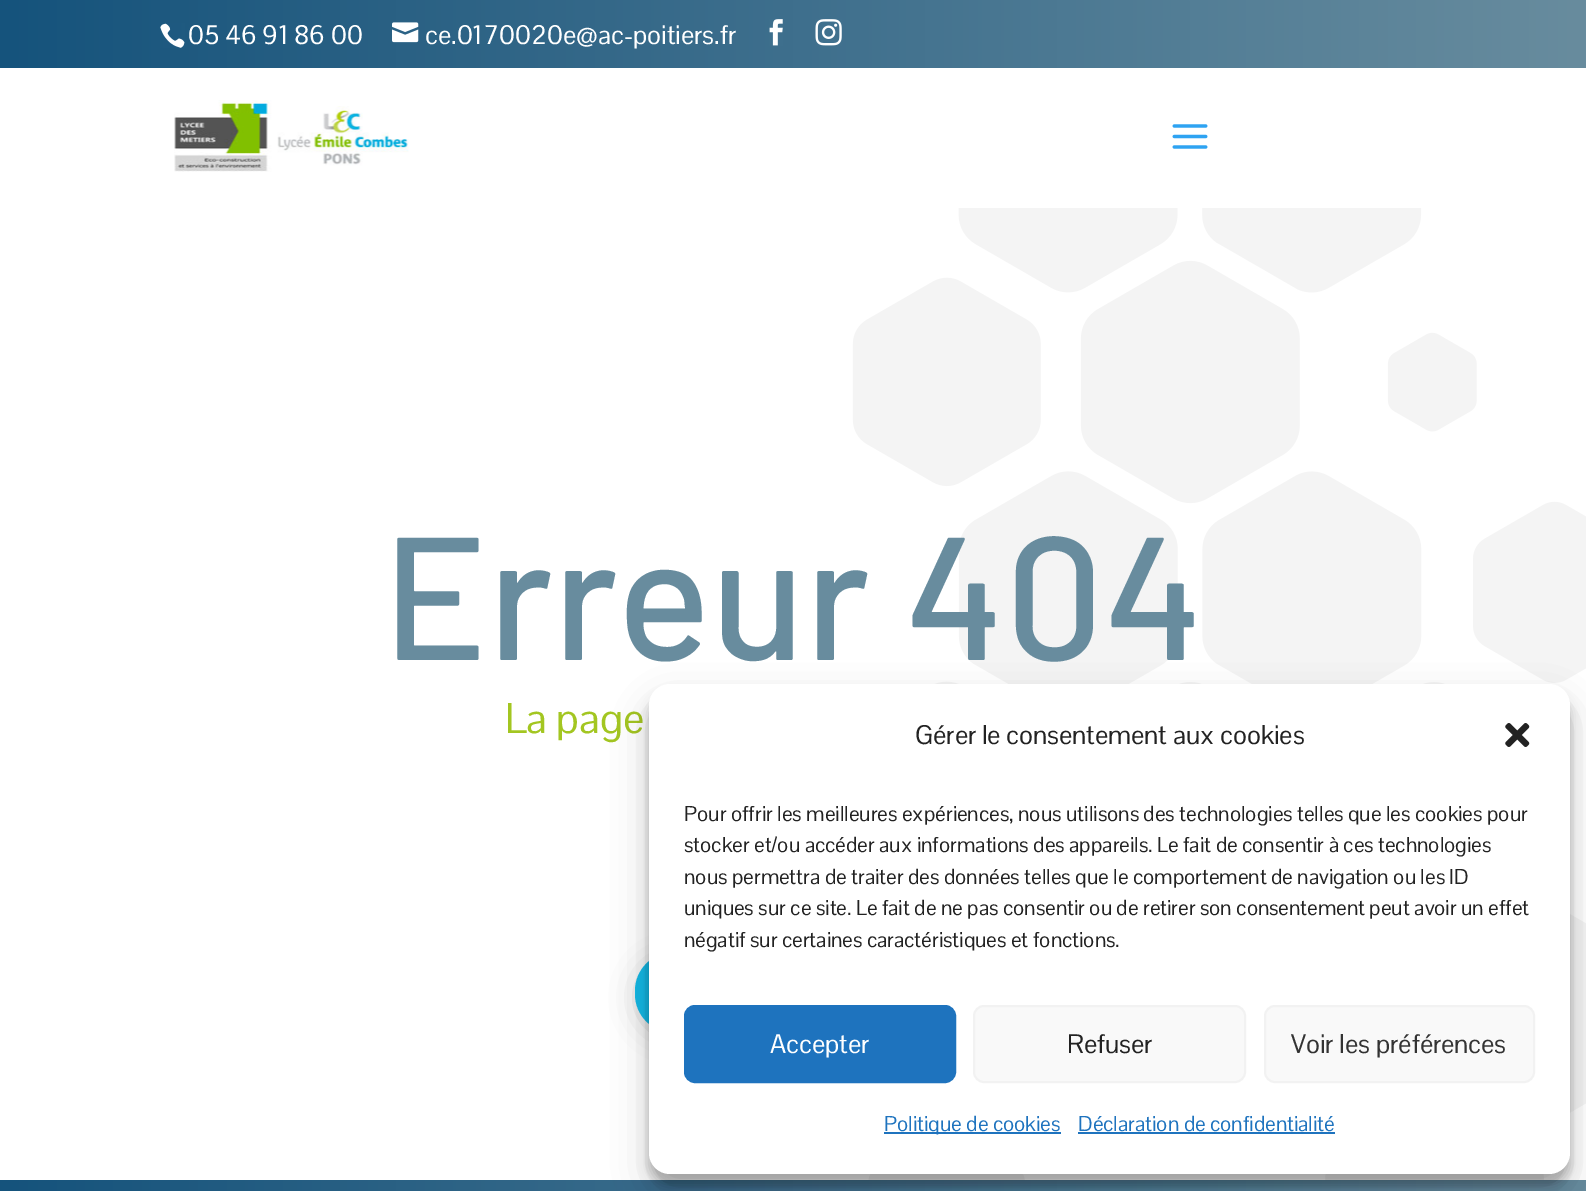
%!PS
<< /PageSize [1586 1191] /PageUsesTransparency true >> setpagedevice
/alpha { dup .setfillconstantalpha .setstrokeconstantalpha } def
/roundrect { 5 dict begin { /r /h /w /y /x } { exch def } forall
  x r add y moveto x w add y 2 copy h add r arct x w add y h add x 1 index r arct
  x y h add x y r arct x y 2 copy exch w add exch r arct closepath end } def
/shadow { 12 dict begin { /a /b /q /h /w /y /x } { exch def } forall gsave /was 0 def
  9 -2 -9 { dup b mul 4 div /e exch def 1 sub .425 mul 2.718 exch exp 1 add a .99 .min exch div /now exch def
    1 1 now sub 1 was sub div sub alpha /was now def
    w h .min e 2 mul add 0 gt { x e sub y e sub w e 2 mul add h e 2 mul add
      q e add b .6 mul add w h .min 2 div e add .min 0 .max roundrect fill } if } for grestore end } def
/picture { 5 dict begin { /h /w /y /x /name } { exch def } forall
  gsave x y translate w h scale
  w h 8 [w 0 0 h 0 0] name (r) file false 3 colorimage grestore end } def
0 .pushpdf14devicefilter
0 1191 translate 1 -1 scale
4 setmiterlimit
1 setgray
0 0 1586 1191 rectfill
gsave newpath 0 0 moveto 1586 0 lineto 1586 68 lineto 0 68 lineto closepath clip newpath
<< /ShadingType 2 /ColorSpace /DeviceRGB /Coords [0 34 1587 34] /Extend [true true] /Function << /FunctionType 2 /Domain [0 1] /C0 [0.082 0.325 0.486] /C1 [0.408 0.549 0.62] /N 1 >> >> shfill grestore
(img1.rgb) 160 23 25 25 picture
/PontanoSans-Regular [26.25 0 0 -26.25 0 0] selectfont
188 44 moveto (05 46 91 86 00) show
(img2.rgb) 392 22 27 21 picture
425 44 moveto (ce.0170020e@ac-poitiers.fr) show
(img3.rgb) 769 19 14 27 picture
(img4.rgb) 815 19 27 27 picture
(img5.rgb) 174 100 235 72 picture
(img6.rgb) 1172 124 36 25 picture
(img7.rgb) 852 208 734 972 picture
/Barlow-Medium [175 0 0 -175 0 0] selectfont
0.408 0.549 0.62 setrgbcolor
383 660 moveto (Erreur 404) show
/PontanoSans-Regular [42 0 0 -42 0 0] selectfont
0.639 0.776 0.129 setrgbcolor
505 733 moveto (La page) show
0 setgray
644 966 299 63 30 16 0.3 shadow
0.071 0.718 0.898 setrgbcolor
635 952 317 81 39 roundrect fill
gsave newpath 0 1180 moveto 1586 1180 lineto 1586 1191 lineto 0 1191 lineto closepath clip newpath
<< /ShadingType 2 /ColorSpace /DeviceRGB /Coords [0 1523 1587 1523] /Extend [true true] /Function << /FunctionType 2 /Domain [0 1] /C0 [0.082 0.325 0.486] /C1 [0.408 0.549 0.62] /N 1 >> >> shfill grestore
0 setgray
649 695 921 490 21 5 0.23 shadow
649 702 921 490 21 17.5 0.19 shadow
1 setgray
649 684 921 490 21 roundrect fill
/PontanoSans-Regular [26.25 0 0 -26.25 0 0] selectfont
0.133 setgray
915 744 moveto (Gérer le consentement aux cookies) show
(img8.rgb) 1505 723 25 24 picture
/PontanoSans-Regular [21 0 0 -21 0 0] selectfont
684 821 moveto (Pour offrir les meilleures expériences, nous utilisons des technologies telles que les cookies pour) show
684 852 moveto (stocker et/ou accéder aux informations des appareils. Le fait de consentir à ces technologies) show
684 884 moveto (nous permettra de traiter des données telles que le comportement de navigation ou les ID) show
684 915 moveto (uniques sur ce site. Le fait de ne pas consentir ou de retirer son consentement peut avoir un effet) show
684 947 moveto (négatif sur certaines caractéristiques et fonctions.) show
0.118 0.451 0.745 setrgbcolor
685 1006 270 76 10 roundrect gsave fill grestore
2 setlinewidth
stroke
/PontanoSans-Regular [26.25 0 0 -26.25 0 0] selectfont
1 setgray
770 1053 moveto (Accepter) show
0.976 setgray
974 1006 271 76 10 roundrect gsave fill grestore
0.949 setgray
stroke
0.133 setgray
1067 1053 moveto (Refuser) show
0.976 setgray
1265 1006 269 76 10 roundrect gsave fill grestore
0.949 setgray
stroke
0.2 setgray
1291 1053 moveto (Voir les préférences) show
0.118 0.451 0.745 setrgbcolor
884 1132 177 2 rectfill
/PontanoSans-Regular [21 0 0 -21 0 0] selectfont
884 1131 moveto (Politique de cookies) show
1078 1131 moveto (Déclaration de confidentialité) show
1078 1132 257 2 rectfill
.poppdf14devicefilter showpage
